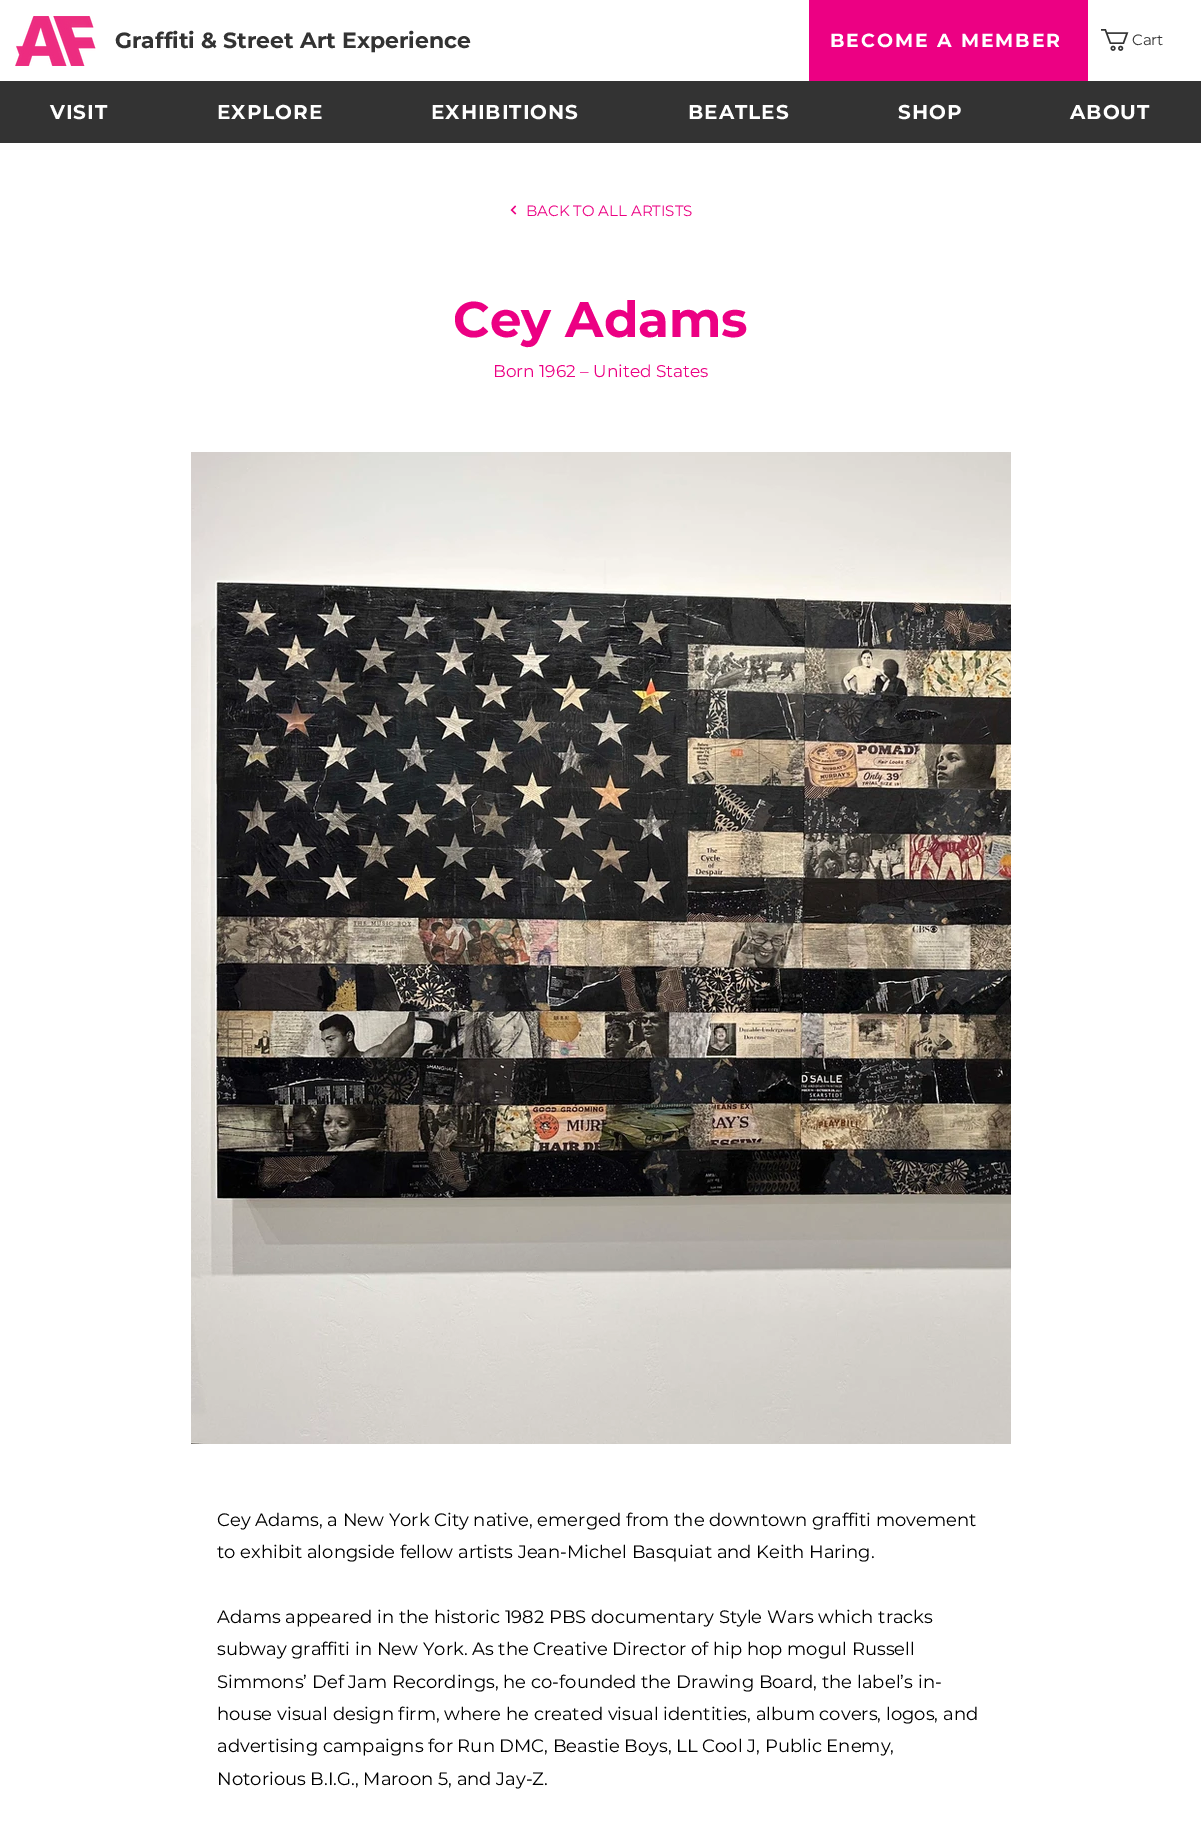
%!PS
<< /PageSize [1201 1831] >> setpagedevice
/picture { 5 dict begin { /h /w /y /x /name } { exch def } forall
  gsave x y translate w h scale
  w h 8 [w 0 0 h 0 0] name (r) file false 3 colorimage grestore end } def
0 1831 translate 1 -1 scale
4 setmiterlimit
1 setgray
0 0 1201 1831 rectfill
(img1.rgb) 15 16 81 50 picture
/Montserrat-Bold [22 0 0 -22 0 0] selectfont
0.2 setgray
115 48 moveto (Graffiti & Street Art Experience) show
0.925 0 0.514 setrgbcolor
809 0 279 81 rectfill
/Montserrat-Bold [19 0 0 -19 0 0] selectfont
1 setgray
830 47 moveto 1.9 0 (BECOME A MEMBER) ashow
(img2.rgb) 1101 29 28 22 picture
/Montserrat-Thin [15 0 0 -15 0 0] selectfont
0.2 setgray
1132 45 moveto (Cart) show
0 81 1201 62 rectfill
/Montserrat-Bold [20 0 0 -20 0 0] selectfont
1 setgray
50 119 moveto 1 0 (VISIT) ashow
217 119 moveto 1 0 (EXPLORE) ashow
431 119 moveto 1 0 (EXHIBITIONS) ashow
688 119 moveto 1 0 (BEATLES) ashow
898 119 moveto 1 0 (SHOP) ashow
1070 119 moveto 1 0 (ABOUT) ashow
(img3.rgb) 510 205 7 10 picture
/Montserrat-Thin [15 0 0 -15 0 0] selectfont
0.925 0 0.514 setrgbcolor
526 216 moveto (BACK TO ALL ARTISTS) show
/Montserrat-Bold [50 0 0 -50 0 0] selectfont
453 337 moveto (Cey Adams) show
/Montserrat-Thin [17 0 0 -17 0 0] selectfont
493 377 moveto (Born 1962 – United States) show
(img4.rgb) 191 452 820 992 picture
/Montserrat-Thin [18 0 0 -18 0 0] selectfont
0 setgray
217 1526 moveto (Cey Adams, a New York City native, emerged from the downtown graffiti movement) show
217 1558 moveto (to exhibit alongside fellow artists Jean-Michel Basquiat and Keith Haring.) show
217 1623 moveto (Adams appeared in the historic 1982 PBS documentary Style Wars which tracks) show
217 1655 moveto (subway graffiti in New York. As the Creative Director of hip hop mogul Russell) show
217 1688 moveto (Simmons’ Def Jam Recordings, he co-founded the Drawing Board, the label’s in-) show
217 1720 moveto (house visual design firm, where he created visual identities, album covers, logos, and) show
217 1752 moveto (advertising campaigns for Run DMC, Beastie Boys, LL Cool J, Public Enemy,) show
217 1785 moveto (Notorious B.I.G., Maroon 5, and Jay-Z.) show
showpage
